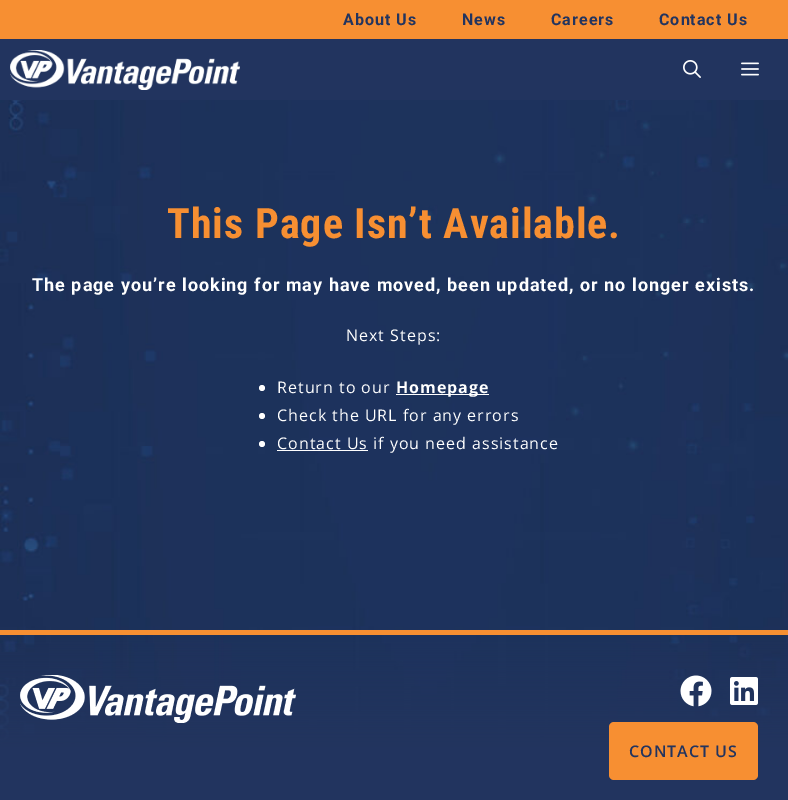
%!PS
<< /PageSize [788 800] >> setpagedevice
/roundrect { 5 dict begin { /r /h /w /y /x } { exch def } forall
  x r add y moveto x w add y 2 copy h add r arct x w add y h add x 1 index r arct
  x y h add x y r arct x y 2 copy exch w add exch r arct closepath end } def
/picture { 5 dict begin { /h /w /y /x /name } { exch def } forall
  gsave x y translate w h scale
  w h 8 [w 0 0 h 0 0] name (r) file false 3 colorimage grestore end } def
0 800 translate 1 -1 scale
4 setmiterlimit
1 setgray
0 0 788 800 rectfill
(img1.rgb) 0 100 788 647 picture
0.969 0.561 0.196 setrgbcolor
0 0 788 39 rectfill
/Roboto-Bold [16 0 0 -16 0 0] selectfont
0.133 0.204 0.373 setrgbcolor
343 25 moveto 1 0 (About Us) ashow
462 25 moveto 1 0 (News) ashow
551 25 moveto 1 0 (Careers) ashow
659 25 moveto 1 0 (Contact Us) ashow
0 39 788 61 rectfill
(img2.rgb) 10 50 230 40 picture
(img3.rgb) 683 60 18 18 picture
(img4.rgb) 741 62 18 14 picture
/RobotoCondensed-Bold [42 0 0 -42 0 0] selectfont
0.969 0.561 0.196 setrgbcolor
167 238 moveto 1 0 (This Page Isn’t Available) ashow
/RobotoCondensed-SemiBold [42 0 0 -42 0 0] selectfont
608 238 moveto 1 0 (.) ashow
/Roboto-Bold [18 0 0 -18 0 0] selectfont
1 setgray
32 291 moveto 1 0 (The page you’re looking for may have moved, been updated, or no longer exists.) ashow
/OpenSans-Regular [16 0 0 -16 0 0] selectfont
346 341 moveto 1 0 (Next Steps:) ashow
newpath 262 388 3 0 360 arc closepath fill
277 393 moveto 1 0 (Return to our) ashow
396 394 93 1 rectfill
/OpenSans-Bold [16 0 0 -16 0 0] selectfont
396 393 moveto 1 0 (Homepage) ashow
newpath 262 416 3 0 360 arc closepath fill
/OpenSans-Regular [16 0 0 -16 0 0] selectfont
277 421 moveto 1 0 (Check the URL for any errors) ashow
newpath 262 444 3 0 360 arc closepath fill
277 450 91 1 rectfill
277 449 moveto 1 0 (Contact Us if you need assistance) ashow
0.969 0.561 0.196 setrgbcolor
0 630 788 5 rectfill
(img5.rgb) 20 675 276 48 picture
(img6.rgb) 680 675 32 32 picture
(img7.rgb) 730 677 28 28 picture
0.133 0.204 0.373 setrgbcolor
0 747 788 53 rectfill
0.969 0.561 0.196 setrgbcolor
609 722 149 58 5 roundrect fill
/OpenSans-SemiBold [16 0 0 -16 0 0] selectfont
0.133 0.204 0.373 setrgbcolor
629 757 moveto 1 0 (CONTACT US) ashow
showpage
